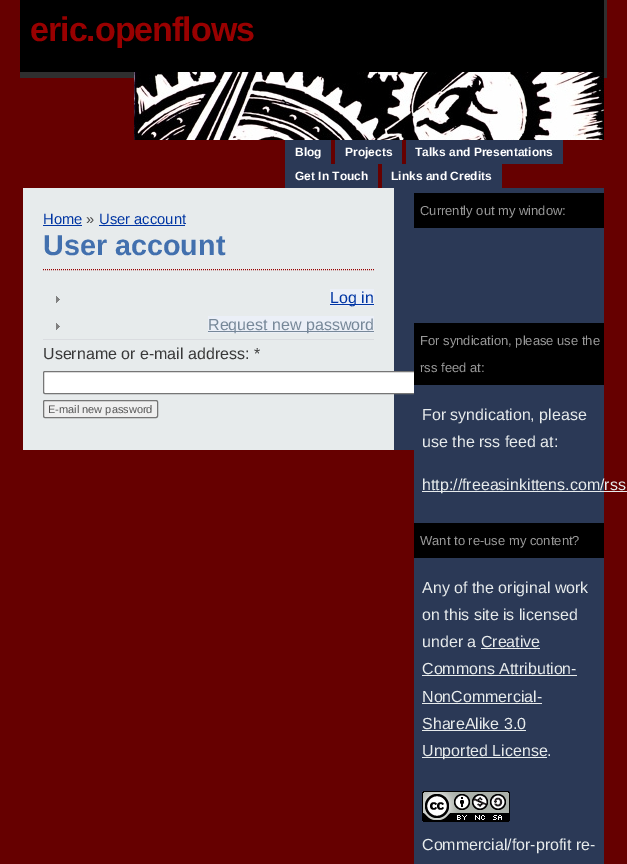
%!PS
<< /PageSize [627 864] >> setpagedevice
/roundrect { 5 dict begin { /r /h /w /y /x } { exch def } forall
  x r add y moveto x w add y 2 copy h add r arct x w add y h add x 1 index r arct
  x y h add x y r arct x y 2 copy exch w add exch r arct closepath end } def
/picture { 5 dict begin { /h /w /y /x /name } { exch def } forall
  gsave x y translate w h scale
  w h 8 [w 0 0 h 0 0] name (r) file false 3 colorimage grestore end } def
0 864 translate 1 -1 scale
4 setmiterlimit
0.4 0 0 setrgbcolor
0 0 627 864 rectfill
0 setgray
20 0 584 72 rectfill
0.184 setgray
604 0 3 72 rectfill
/LiberationSans-Bold [34 0 0 -34 0 0] selectfont
0.6 0 0 setrgbcolor
30 41 moveto -1 0 (eric.openflows) ashow
0.184 setgray
20 72 587 6 rectfill
(img1.rgb) 134 72 470 68 picture
0.169 0.224 0.337 setrgbcolor
285 140 46 24 rectfill
/LiberationSans-Bold [12 0 0 -12 0 0] selectfont
1 setgray
295 156 moveto (Blog) show
0.169 0.224 0.337 setrgbcolor
335 140 67 24 rectfill
1 setgray
345 156 moveto (Projects) show
0.169 0.224 0.337 setrgbcolor
406 140 157 24 rectfill
1 setgray
415 156 moveto (Talks and Presentations) show
0.169 0.224 0.337 setrgbcolor
285 164 93 24 rectfill
1 setgray
295 180 moveto (Get In Touch) show
0.169 0.224 0.337 setrgbcolor
382 164 120 24 rectfill
1 setgray
391 180 moveto (Links and Credits) show
0.906 0.922 0.925 setrgbcolor
23 188 371 262 rectfill
0.169 0.224 0.337 setrgbcolor
394 188 20 262 rectfill
/LiberationSans-Regular [14.75 0 0 -14.75 0 0] selectfont
0 0.208 0.639 setrgbcolor
43 224 moveto (Home) show
43 225 39 1 rectfill
0.286 setgray
86 224 moveto (») show
0 0.208 0.639 setrgbcolor
99 224 moveto (User account) show
99 225 86 1 rectfill
0.6 0 0 setrgbcolor
[1 1] 0 setdash
newpath 43 269.5 moveto 374 269.5 lineto stroke
/LiberationSans-Bold [28.75 0 0 -28.75 0 0] selectfont
0.259 0.439 0.682 setrgbcolor
43 255 moveto (User account) show
0.855 0.863 0.878 setrgbcolor
43 339 331 1 rectfill
(img2.rgb) 56 296 4 7 picture
0.922 0.937 0.969 setrgbcolor
330 289 44 17 rectfill
0 0.208 0.639 setrgbcolor
330 304 44 1 rectfill
/LiberationSans-Regular [16 0 0 -16 0 0] selectfont
330 303 moveto (Log in) show
(img2.rgb) 56 323 4 7 picture
0.922 0.937 0.969 setrgbcolor
208 316 166 17 rectfill
0.467 0.533 0.6 setrgbcolor
208 331 166 1 rectfill
208 330 moveto (Request new password) show
0.224 setgray
43 359 moveto (Username or e-mail address: *) show
1 setgray
43.5 371.5 406 22 1.5 roundrect gsave fill grestore
0.463 setgray
[] 0 setdash
stroke
0.937 setgray
43.5 400.5 114 17 1.5 roundrect gsave fill grestore
0.463 setgray
stroke
/LiberationSans-Regular [11 0 0 -11 0 0] selectfont
0.333 setgray
48 413 moveto (E-mail new password) show
0.169 0.224 0.337 setrgbcolor
414 188 190 676 rectfill
0 setgray
414 193 190 35 rectfill
/LiberationSans-Regular [13 0 0 -13 0 0] selectfont
0.6 setgray
420 215 moveto (Currently out my window:) show
0 setgray
414 323 190 62 rectfill
0.6 setgray
420 345 moveto (For syndication, please use the) show
420 372 moveto (rss feed at:) show
/LiberationSans-Regular [16 0 0 -16 0 0] selectfont
0.906 0.922 0.925 setrgbcolor
422 420 moveto (For syndication, please) show
422 447 moveto (use the rss feed at:) show
422 491 205 1 rectfill
422 490 moveto (http://freeasinkittens.com/rss) show
0 setgray
414 523 190 35 rectfill
/LiberationSans-Regular [13 0 0 -13 0 0] selectfont
0.6 setgray
420 545 moveto (Want to re-use my content?) show
/LiberationSans-Regular [16 0 0 -16 0 0] selectfont
0.906 0.922 0.925 setrgbcolor
422 593 moveto (Any of the original work) show
422 620 moveto (on this site is licensed) show
422 647 moveto (under a Creative) show
422 674 moveto (Commons Attribution-) show
481 648 59 1 rectfill
422 675 155 1 rectfill
422 702 moveto (NonCommercial-) show
422 703 120 1 rectfill
422 729 moveto (ShareAlike 3.0) show
422 730 104 1 rectfill
422 757 125 1 rectfill
422 756 moveto (Unported License.) show
(img3.rgb) 422 791 88 31 picture
422 850 moveto (Commercial/for-profit re-) show
showpage
